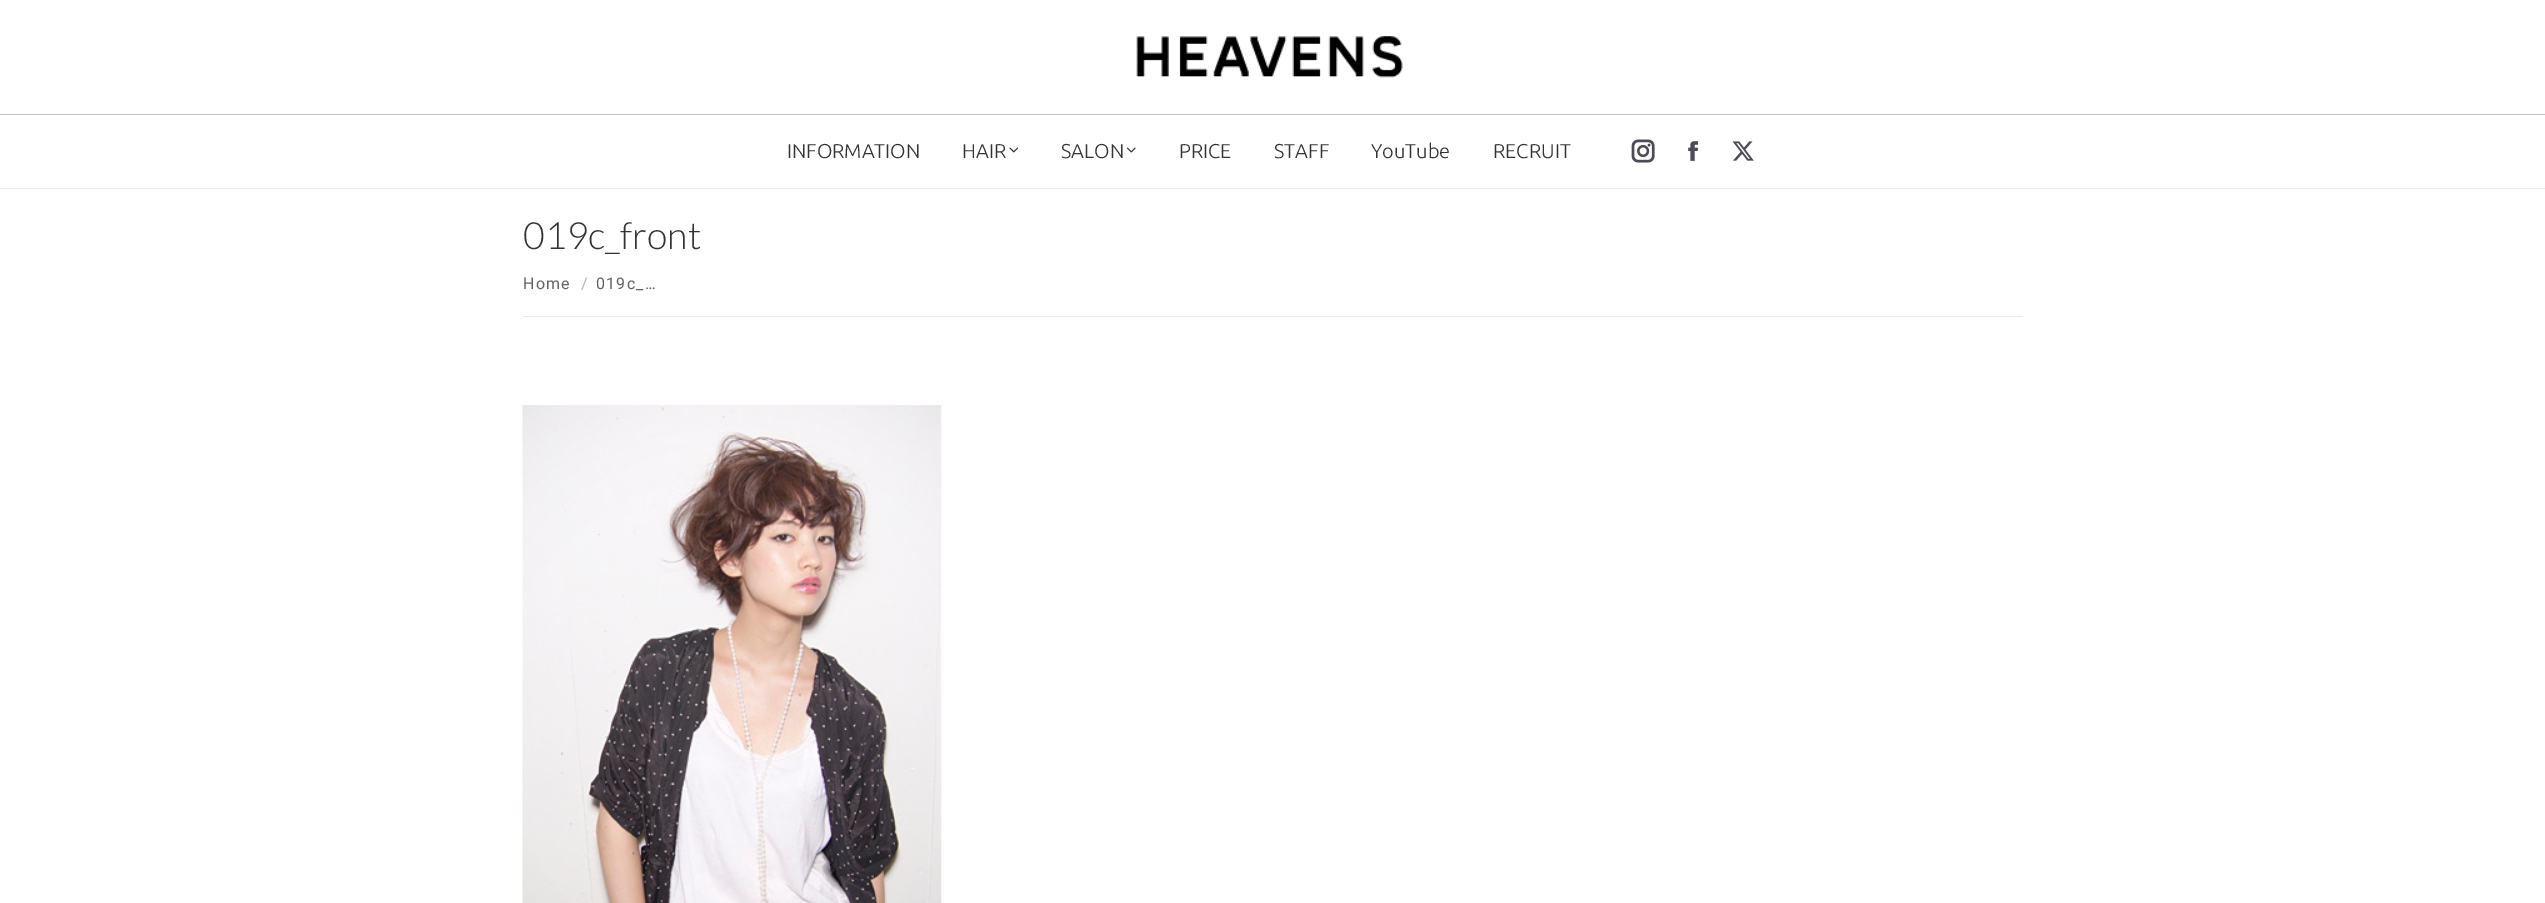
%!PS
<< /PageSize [2545 903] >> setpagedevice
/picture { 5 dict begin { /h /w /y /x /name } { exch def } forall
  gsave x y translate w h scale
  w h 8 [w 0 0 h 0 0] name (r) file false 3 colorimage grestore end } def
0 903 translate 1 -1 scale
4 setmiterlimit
1 setgray
0 0 2545 903 rectfill
0.914 setgray
0 188 2545 1 rectfill
(img1.rgb) 1136 36 267 42 picture
0.753 setgray
0 114 2545 1 rectfill
/Ubuntu-Light [20 0 0 -20 0 0] selectfont
0.2 setgray
787 158 moveto (INFORMATION) show
962 158 moveto (HAIR) show
(img2.rgb) 1009 147 10 6 picture
1061 158 moveto (SALON) show
(img3.rgb) 1126 147 10 6 picture
1179 158 moveto (PRICE) show
1274 158 moveto (STAFF) show
1371 158 moveto (YouTube) show
1493 158 moveto (RECRUIT) show
(img4.rgb) 1631 139 24 24 picture
(img5.rgb) 1688 141 11 20 picture
(img6.rgb) 1732 141 22 20 picture
/Lato-Light [37.5 0 0 -37.5 0 0] selectfont
523 249 moveto (019c_front) show
/Roboto-Regular [16 0 0 -16 0 0] selectfont
0.38 0.388 0.408 setrgbcolor
523 289 moveto 1.25 0 (Home) ashow
0.69 0.694 0.706 setrgbcolor
581 289 moveto 1.25 0 (/) ashow
0.38 0.388 0.408 setrgbcolor
596 289 moveto 1.25 0 (019c_…) ashow
0.914 setgray
523 316 1500 1 rectfill
(img7.rgb) 522 405 420 498 picture
showpage
